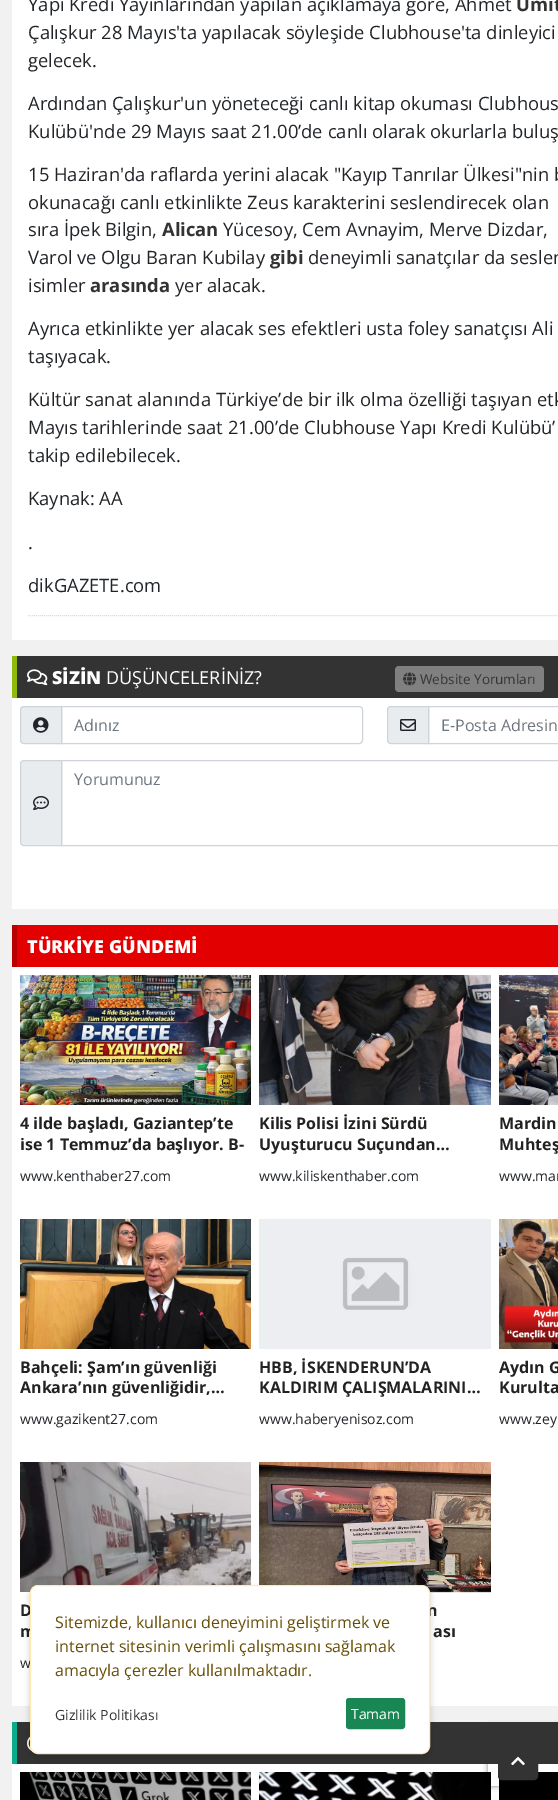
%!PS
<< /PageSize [558 1800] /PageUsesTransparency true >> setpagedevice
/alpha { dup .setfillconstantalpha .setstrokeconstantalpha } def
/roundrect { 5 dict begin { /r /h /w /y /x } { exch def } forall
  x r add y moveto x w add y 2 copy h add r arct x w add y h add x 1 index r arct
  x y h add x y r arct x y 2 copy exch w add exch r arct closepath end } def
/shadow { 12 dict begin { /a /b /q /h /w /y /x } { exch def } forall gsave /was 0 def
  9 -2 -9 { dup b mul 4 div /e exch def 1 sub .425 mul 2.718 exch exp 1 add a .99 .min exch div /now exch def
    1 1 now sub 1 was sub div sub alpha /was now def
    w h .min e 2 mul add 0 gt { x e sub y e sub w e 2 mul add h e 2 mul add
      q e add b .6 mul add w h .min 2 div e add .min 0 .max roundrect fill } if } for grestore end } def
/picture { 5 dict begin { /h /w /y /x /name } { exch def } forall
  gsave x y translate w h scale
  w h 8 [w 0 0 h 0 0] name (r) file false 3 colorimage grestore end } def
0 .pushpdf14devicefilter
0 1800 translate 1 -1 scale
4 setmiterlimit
0.945 setgray
0 0 558 1800 rectfill
1 setgray
12 0 546 640 rectfill
/OpenSans-Regular [18.4 0 0 -18.4 0 0] selectfont
0.129 0.145 0.161 setrgbcolor
28 11 moveto (Yapı Kredi Yayınlarından yapılan açıklamaya göre, Ahmet) show
/OpenSans-Bold [18.4 0 0 -18.4 0 0] selectfont
0.2 setgray
516 11 moveto (Ümit) show
/OpenSans-Regular [18.4 0 0 -18.4 0 0] selectfont
0.129 0.145 0.161 setrgbcolor
28 39 moveto (Çalışkur 28 Mayıs'ta yapılacak söyleşide Clubhouse'ta dinleyici) show
28 67 moveto (gelecek.) show
28 110 moveto (Ardından Çalışkur'un yöneteceği canlı kitap okuması Clubhous) show
28 138 moveto (Kulübü'nde 29 Mayıs saat 21.00’de canlı olarak okurlarla buluş) show
28 181 moveto (15 Haziran'da raflarda yerini alacak "Kayıp Tanrılar Ülkesi"nin b) show
28 209 moveto (okunacağı canlı etkinlikte Zeus karakterini seslendirecek olan) show
28 236 moveto (sıra İpek Bilgin,) show
/OpenSans-Bold [18.4 0 0 -18.4 0 0] selectfont
0.2 setgray
162 236 moveto (Alican) show
/OpenSans-Regular [18.4 0 0 -18.4 0 0] selectfont
0.129 0.145 0.161 setrgbcolor
223 236 moveto (Yücesoy, Cem Avnayim, Merve Dizdar,) show
28 264 moveto (Varol ve Olgu Baran Kubilay) show
/OpenSans-Bold [18.4 0 0 -18.4 0 0] selectfont
0.2 setgray
270 264 moveto (gibi) show
/OpenSans-Regular [18.4 0 0 -18.4 0 0] selectfont
0.129 0.145 0.161 setrgbcolor
308 264 moveto (deneyimli sanatçılar da seslen) show
28 292 moveto (isimler) show
/OpenSans-Bold [18.4 0 0 -18.4 0 0] selectfont
0.2 setgray
90 292 moveto (arasında) show
/OpenSans-Regular [18.4 0 0 -18.4 0 0] selectfont
0.129 0.145 0.161 setrgbcolor
175 292 moveto (yer alacak.) show
28 335 moveto (Ayrıca etkinlikte yer alacak ses efektleri usta foley sanatçısı Ali) show
28 363 moveto (taşıyacak.) show
28 406 moveto (Kültür sanat alanında Türkiye’de bir ilk olma özelliği taşıyan etk) show
28 434 moveto (Mayıs tarihlerinde saat 21.00’de Clubhouse Yapı Kredi Kulübü’) show
28 462 moveto (takip edilebilecek.) show
28 505 moveto (Kaynak: AA) show
28 549 moveto (.) show
28 592 moveto (dikGAZETE.com) show
0.867 setgray
[1 1] 0 setdash
newpath 28 615.5 moveto 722 615.5 lineto stroke
0.2 setgray
17 656 541 42 rectfill
0.561 0.729 0.043 setrgbcolor
12 656 5 42 rectfill
(img1.rgb) 27 669 21 17 picture
/OpenSans-ExtraBold [18 0 0 -18 0 0] selectfont
1 setgray
52 684 moveto (SİZİN) show
/OpenSans-Regular [18 0 0 -18 0 0] selectfont
106 684 moveto (DÜŞÜNCELERİNİZ?) show
0.502 setgray
395 666 149 26 4 roundrect fill
(img2.rgb) 403 672 14 14 picture
/OpenSans-Regular [13.5 0 0 -13.5 0 0] selectfont
0.2 setgray
420 684 moveto (Website Yorumları) show
1 setgray
12 698 546 211 rectfill
0.914 0.925 0.937 setrgbcolor
newpath 24 706.5 moveto 61.5 706.5 lineto 61.5 743.5 lineto 24 743.5 lineto 22 743.5 20.5 742 20.5 740 curveto 20.5 710 lineto 20.5 708 22 706.5 24 706.5 curveto closepath gsave fill grestore
0.808 0.831 0.855 setrgbcolor
[] 0 setdash
stroke
(img3.rgb) 33 717 16 16 picture
newpath 61.5 706.5 moveto 359 706.5 lineto 361 706.5 362.5 708 362.5 710 curveto 362.5 740 lineto 362.5 742 361 743.5 359 743.5 curveto 61.5 743.5 lineto closepath stroke
/OpenSans-Regular [16 0 0 -16 0 0] selectfont
0.424 0.459 0.49 setrgbcolor
74 731 moveto (Adınız) show
0.914 0.925 0.937 setrgbcolor
newpath 391 706.5 moveto 428.5 706.5 lineto 428.5 743.5 lineto 391 743.5 lineto 389 743.5 387.5 742 387.5 740 curveto 387.5 710 lineto 387.5 708 389 706.5 391 706.5 curveto closepath gsave fill grestore
0.808 0.831 0.855 setrgbcolor
stroke
(img4.rgb) 400 719 16 12 picture
428.5 706.5 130 37 rectstroke
0.424 0.459 0.49 setrgbcolor
441 731 moveto (E-Posta Adresin) show
0.914 0.925 0.937 setrgbcolor
newpath 24 760.5 moveto 61.5 760.5 lineto 61.5 845.5 lineto 24 845.5 lineto 22 845.5 20.5 844 20.5 842 curveto 20.5 764 lineto 20.5 762 22 760.5 24 760.5 curveto closepath gsave fill grestore
0.808 0.831 0.855 setrgbcolor
stroke
(img5.rgb) 33 796 16 14 picture
61.5 760.5 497 85 rectstroke
0.424 0.459 0.49 setrgbcolor
74 785 moveto (Yorumunuz) show
1 setgray
12 1764 546 36 rectfill
gsave
newpath 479 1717 moveto 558 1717 lineto 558 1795 lineto 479 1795 lineto closepath 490 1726 moveto 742 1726 lineto 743 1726 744 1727 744 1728 curveto 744 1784 lineto 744 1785 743 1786 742 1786 curveto 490 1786 lineto 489 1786 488 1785 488 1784 curveto 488 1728 lineto 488 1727 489 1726 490 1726 curveto closepath eoclip newpath
0.502 setgray
488 1726 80 60 2 2.5 1 shadow
grestore
0.89 0 0 setrgbcolor
17 925 541 42 rectfill
0.718 0 0 setrgbcolor
12 925 5 42 rectfill
/OpenSans-ExtraBold [18 0 0 -18 0 0] selectfont
1 setgray
27 953 moveto (TÜRKİYE GÜNDEMİ) show
12 967 546 739 rectfill
(img6.rgb) 20 975 231 130 picture
/OpenSans-Bold [16 0 0 -16 0 0] selectfont
0.133 setgray
20 1129 moveto (4 ilde başladı, Gaziantep’te) show
20 1150 moveto (ise 1 Temmuz’da başlıyor. B-) show
/OpenSans-Regular [14 0 0 -14 0 0] selectfont
0.129 0.145 0.161 setrgbcolor
20 1181 moveto (www.kenthaber27.com) show
(img7.rgb) 259 975 232 130 picture
/OpenSans-Bold [16 0 0 -16 0 0] selectfont
0.133 setgray
259 1129 moveto (Kilis Polisi İzini Sürdü) show
259 1150 moveto (Uyuşturucu Suçundan…) show
/OpenSans-Regular [14 0 0 -14 0 0] selectfont
0.129 0.145 0.161 setrgbcolor
259 1181 moveto (www.kiliskenthaber.com) show
(img8.rgb) 499 975 59 130 picture
/OpenSans-Bold [16 0 0 -16 0 0] selectfont
0.133 setgray
499 1129 moveto (Mardin) show
499 1150 moveto (Muhteş) show
/OpenSans-Regular [14 0 0 -14 0 0] selectfont
0.129 0.145 0.161 setrgbcolor
499 1181 moveto (www.mar) show
(img9.rgb) 20 1219 231 130 picture
/OpenSans-Bold [16 0 0 -16 0 0] selectfont
0.133 setgray
20 1373 moveto (Bahçeli: Şam’ın güvenliği) show
20 1393 moveto (Ankara’nın güvenliğidir,…) show
/OpenSans-Regular [14 0 0 -14 0 0] selectfont
0.129 0.145 0.161 setrgbcolor
20 1424 moveto (www.gazikent27.com) show
(img10.rgb) 259 1219 232 130 picture
/OpenSans-Bold [16 0 0 -16 0 0] selectfont
0.133 setgray
259 1373 moveto (HBB, İSKENDERUN’DA) show
259 1393 moveto (KALDIRIM ÇALIŞMALARINI…) show
/OpenSans-Regular [14 0 0 -14 0 0] selectfont
0.129 0.145 0.161 setrgbcolor
259 1424 moveto (www.haberyenisoz.com) show
(img11.rgb) 499 1219 59 130 picture
/OpenSans-Bold [16 0 0 -16 0 0] selectfont
0.133 setgray
499 1373 moveto (Aydın G) show
499 1393 moveto (Kurulta) show
/OpenSans-Regular [14 0 0 -14 0 0] selectfont
0.129 0.145 0.161 setrgbcolor
499 1424 moveto (www.zey) show
(img12.rgb) 20 1462 231 130 picture
/OpenSans-Bold [16 0 0 -16 0 0] selectfont
0.133 setgray
20 1616 moveto (D) show
20 1637 moveto (m) show
/OpenSans-Regular [14 0 0 -14 0 0] selectfont
0.129 0.145 0.161 setrgbcolor
20 1668 moveto (w) show
(img13.rgb) 259 1462 232 131 picture
/OpenSans-Bold [16 0 0 -16 0 0] selectfont
0.133 setgray
427 1616 moveto (n) show
433 1637 moveto (ası) show
0.2 setgray
17 1722 541 42 rectfill
0.039 0.675 0.549 setrgbcolor
12 1722 5 42 rectfill
(img14.rgb) 27 1736 6 16 picture
(img15.rgb) 20 1772 231 28 picture
(img16.rgb) 259 1772 232 28 picture
0 setgray
499 1772 59 28 rectfill
30 1587 400 169 8 2 0.08 shadow
30 1589 400 169 8 4 0.12 shadow
1 setgray
30.5 1585.5 399 168 7.5 roundrect gsave fill grestore
1 0.925 0.71 setrgbcolor
stroke
/OpenSans-Regular [16 0 0 -16 0 0] selectfont
0.4 0.302 0.012 setrgbcolor
55 1628 moveto (Sitemizde, kullanıcı deneyimini geliştirmek ve) show
55 1652 moveto (internet sitesinin verimli çalışmasını sağlamak) show
55 1676 moveto (amacıyla çerezler kullanılmaktadır.) show
/OpenSans-Regular [14 0 0 -14 0 0] selectfont
0.2 setgray
55 1720 moveto (Gizlilik Politikası) show
0.098 0.529 0.329 setrgbcolor
346.5 1698.5 58 30 2.5 roundrect gsave fill grestore
stroke
1 setgray
351 1719 moveto (Tamam) show
0.2 setgray
498.5 1742.5 39 37 3.5 roundrect gsave fill grestore
stroke
(img17.rgb) 511 1756 14 10 picture
.poppdf14devicefilter showpage
